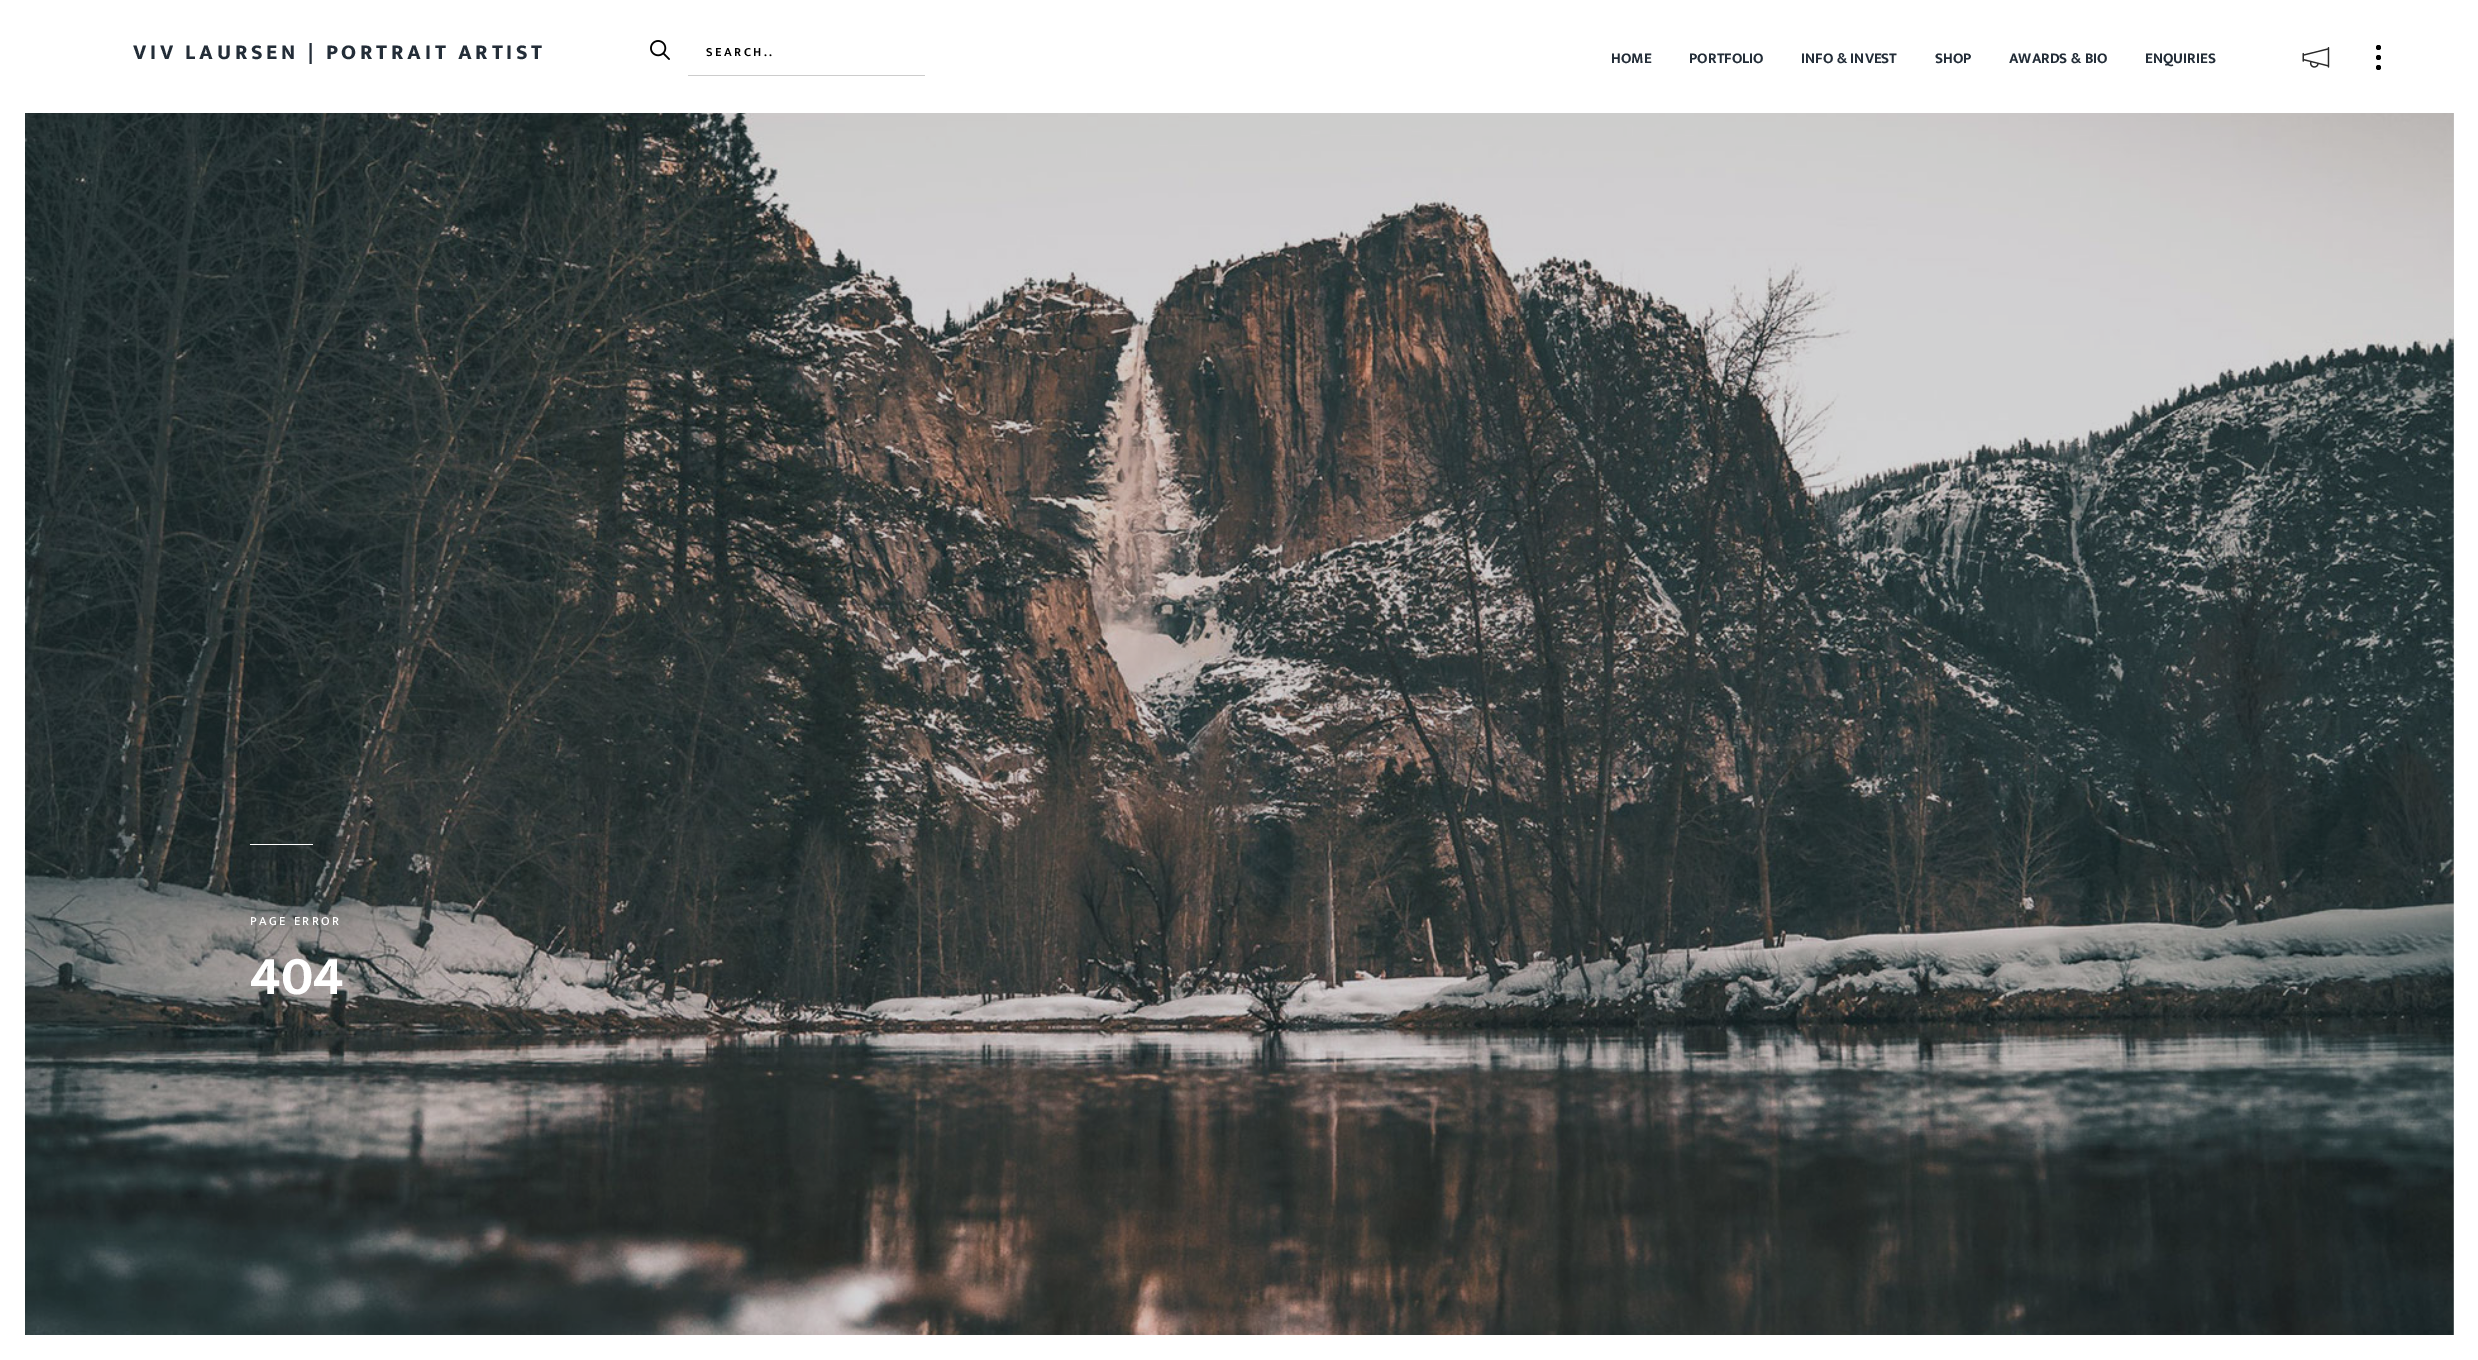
%!PS
<< /PageSize [2478 1360] >> setpagedevice
/picture { 5 dict begin { /h /w /y /x /name } { exch def } forall
  gsave x y translate w h scale
  w h 8 [w 0 0 h 0 0] name (r) file false 3 colorimage grestore end } def
0 1360 translate 1 -1 scale
4 setmiterlimit
1 setgray
0 0 2478 1360 rectfill
/EkMukta-ExtraBold [21.25 0 0 -21.25 0 0] selectfont
0.137 0.176 0.22 setrgbcolor
133 59 moveto 3.75 0 (VIV LAURSEN | PORTRAIT ARTIST) ashow
(img1.rgb) 650 40 20 20 picture
0.8 setgray
688 75 237 1 rectfill
/EkMukta-SemiBold [12.5 0 0 -12.5 0 0] selectfont
0 setgray
706 56 moveto 2.5 0 (SEARCH..) ashow
/EkMukta-Bold [15 0 0 -15 0 0] selectfont
0.137 0.176 0.22 setrgbcolor
1611 63 moveto (HOME) show
1689 63 moveto (PORTFOLIO) show
1801 63 moveto (INFO & INVEST) show
1935 63 moveto (SHOP) show
2009 63 moveto (AWARDS & BIO) show
2145 63 moveto (ENQUIRIES) show
(img2.rgb) 2302 47 28 21 picture
0 setgray
newpath 2378.5 47.5 2.5 0 360 arc closepath fill
newpath 2378.5 57.5 2.5 0 360 arc closepath fill
newpath 2378.5 67.5 2.5 0 360 arc closepath fill
(img3.rgb) 25 113 2429 1222 picture
/EkMukta-Medium [12.5 0 0 -12.5 0 0] selectfont
1 setgray
250 925 moveto 2.5 0 (PAGE ERROR) ashow
250 844 63 1 rectfill
/EkMukta-Bold [55 0 0 -55 0 0] selectfont
250 994 moveto (404) show
showpage
